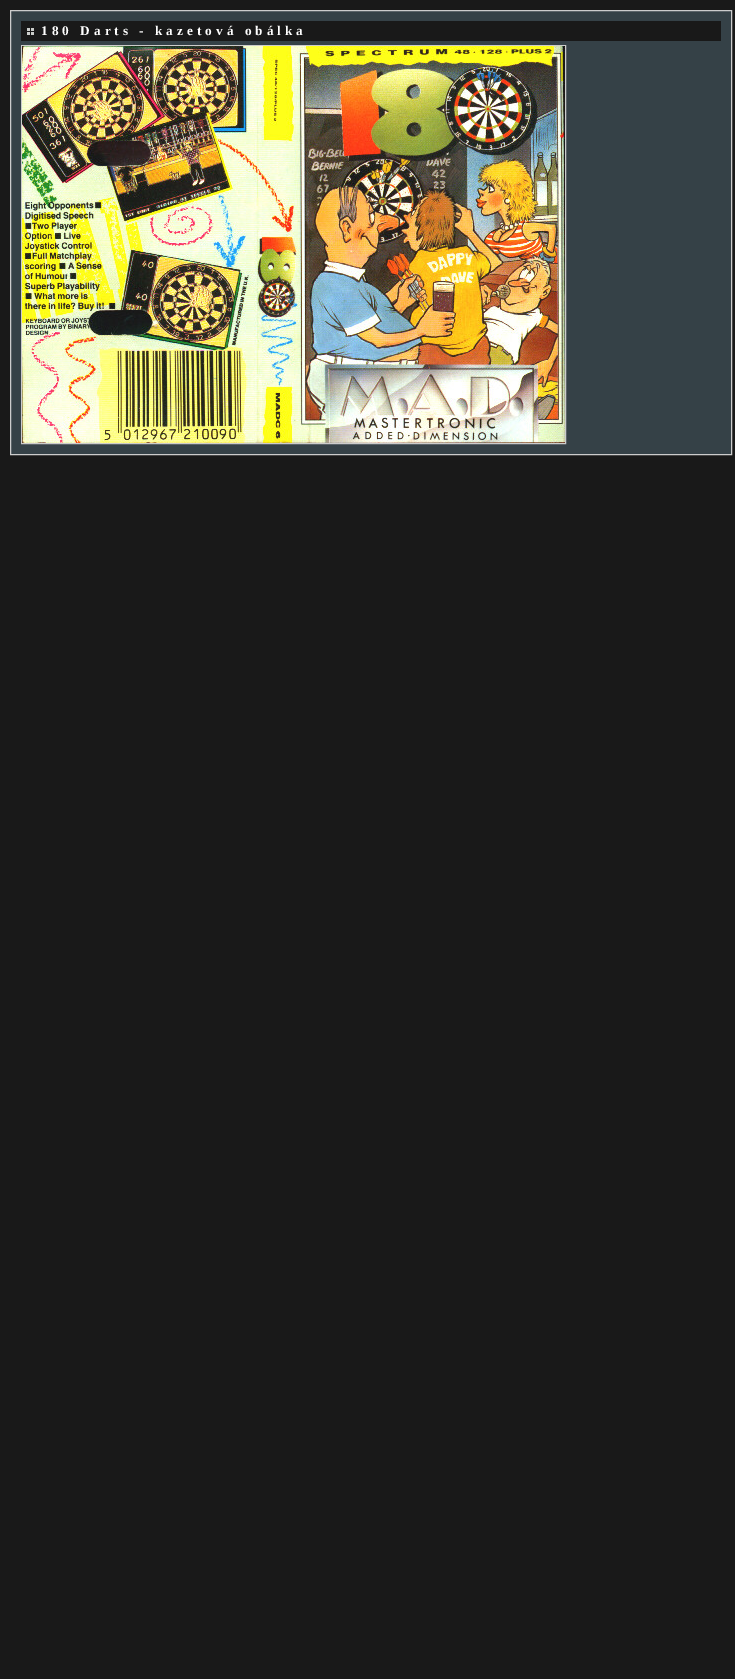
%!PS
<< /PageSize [735 1679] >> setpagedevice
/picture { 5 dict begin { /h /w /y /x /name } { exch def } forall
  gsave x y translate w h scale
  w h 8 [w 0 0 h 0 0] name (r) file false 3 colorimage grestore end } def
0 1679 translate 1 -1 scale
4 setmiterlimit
0.098 setgray
0 0 735 1679 rectfill
0.208 0.255 0.278 setrgbcolor
newpath 10.5 10.5 moveto 731.5 10.5 lineto 731.5 454.5 lineto 10.5 454.5 lineto closepath gsave fill grestore
0.8 setgray
stroke
0.098 setgray
21 21 700 20 rectfill
(img1.rgb) 27 28 7 7 picture
/LiberationSerif-Bold [13.3 0 0 -13.3 0 0] selectfont
1 setgray
41 35 moveto 4 0 (180 Darts - kazetová obálka) ashow
0.8 setgray
21.5 45.5 544 398 rectstroke
(img2.rgb) 22 46 543 397 picture
showpage
